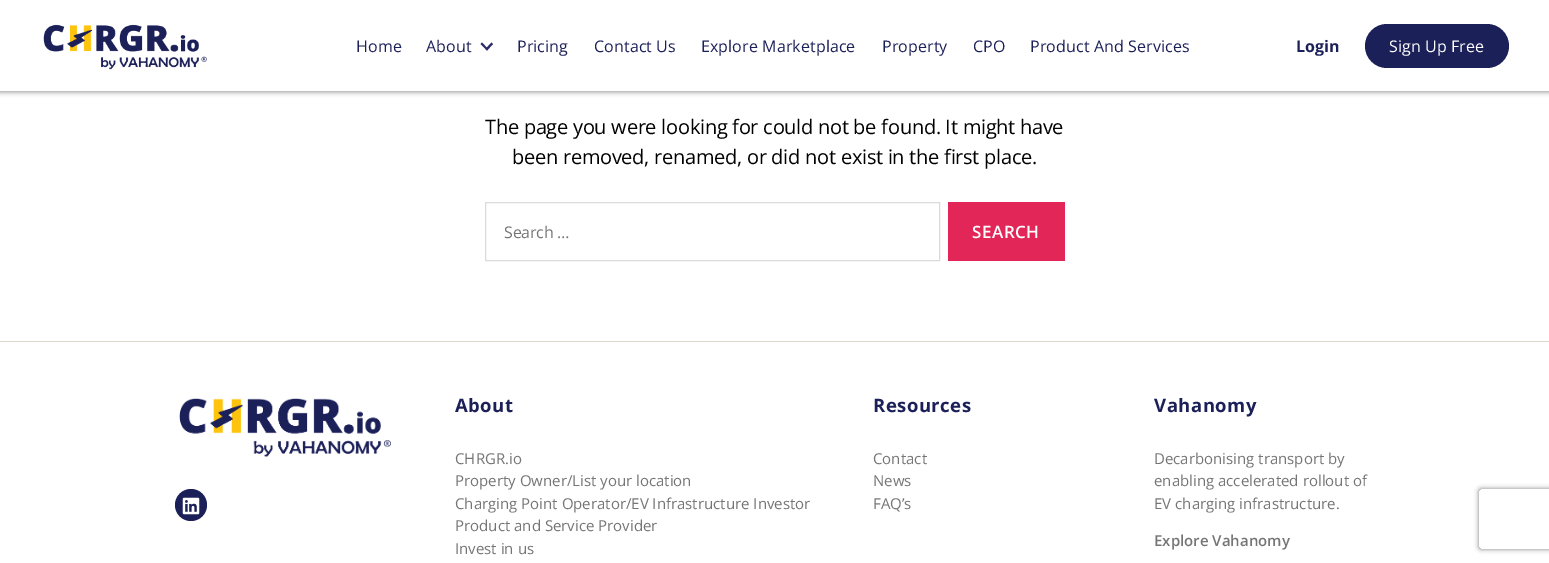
%!PS
<< /PageSize [1549 563] /PageUsesTransparency true >> setpagedevice
/alpha { dup .setfillconstantalpha .setstrokeconstantalpha } def
/roundrect { 5 dict begin { /r /h /w /y /x } { exch def } forall
  x r add y moveto x w add y 2 copy h add r arct x w add y h add x 1 index r arct
  x y h add x y r arct x y 2 copy exch w add exch r arct closepath end } def
/shadow { 12 dict begin { /a /b /q /h /w /y /x } { exch def } forall gsave /was 0 def
  9 -2 -9 { dup b mul 4 div /e exch def 1 sub .425 mul 2.718 exch exp 1 add a .99 .min exch div /now exch def
    1 1 now sub 1 was sub div sub alpha /was now def
    w h .min e 2 mul add 0 gt { x e sub y e sub w e 2 mul add h e 2 mul add
      q e add b .6 mul add w h .min 2 div e add .min 0 .max roundrect fill } if } for grestore end } def
/picture { 5 dict begin { /h /w /y /x /name } { exch def } forall
  gsave x y translate w h scale
  w h 8 [w 0 0 h 0 0] name (r) file false 3 colorimage grestore end } def
0 .pushpdf14devicefilter
0 563 translate 1 -1 scale
4 setmiterlimit
1 setgray
0 0 1549 563 rectfill
0 setgray
-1 -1 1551 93 0 2.5 0.4 shadow
1 setgray
0 0 1549 91 rectfill
(img1.rgb) 43 24 164 46 picture
/OpenSans-Regular [16 0 0 -16 0 0] selectfont
0.11 0.125 0.349 setrgbcolor
356 52 moveto 0.1 0 (Home) ashow
426 52 moveto 0.1 0 (About) ashow
0.173 0.173 0.408 setrgbcolor
newpath 480.5 44 moveto 482 42.5 lineto 488 49 lineto 487 50.5 lineto closepath fill
newpath 485.5 49 moveto 491.5 42.5 lineto 493 44 lineto 487 50.5 lineto closepath fill
0.11 0.125 0.349 setrgbcolor
517 52 moveto 0.1 0 (Pricing) ashow
594 52 moveto 0.1 0 (Contact Us) ashow
701 52 moveto 0.1 0 (Explore Marketplace) ashow
882 52 moveto 0.1 0 (Property) ashow
973 52 moveto 0.1 0 (CPO) ashow
1030 52 moveto 0.1 0 (Product And Services) ashow
/OpenSans-Bold [16 0 0 -16 0 0] selectfont
1296 52 moveto 0.1 0 (Login) ashow
1365 24 144 44 22 roundrect fill
/OpenSans-Regular [16 0 0 -16 0 0] selectfont
1 setgray
1389 52 moveto 0.1 0 (Sign Up Free) ashow
/OpenSans-Regular [20 0 0 -20 0 0] selectfont
0 setgray
485 134 moveto -0.27 0 (The page you were looking for could not be found. It might have) ashow
512 164 moveto -0.27 0 (been removed, renamed, or did not exist in the first place.) ashow
0.859 setgray
485.5 202.5 454 58 rectstroke
/OpenSans-Regular [16 0 0 -16 0 0] selectfont
0.459 setgray
504 238 moveto -0.25 0 (Search …) ashow
0.886 0.149 0.345 setrgbcolor
948 202 117 59 rectfill
/OpenSans-SemiBold [17 0 0 -17 0 0] selectfont
1 setgray
972 238 moveto 0.5 0 (SEARCH) ashow
0.863 0.843 0.792 setrgbcolor
0 341 1549 1 rectfill
(img2.rgb) 179 398 212 59 picture
0.11 0.125 0.349 setrgbcolor
newpath 191 505 16 0 360 arc closepath fill
(img3.rgb) 182 497 18 18 picture
/OpenSans-Bold [18.5 0 0 -18.5 0 0] selectfont
455 412 moveto 0.5 0 (About) ashow
/OpenSans-Regular [15 0 0 -15 0 0] selectfont
0.459 setgray
455 464 moveto (CHRGR.io) show
455 486 moveto (Property Owner/List your location) show
455 509 moveto (Charging Point Operator/EV Infrastructure Investor) show
455 531 moveto (Product and Service Provider) show
455 554 moveto (Invest in us) show
/OpenSans-Bold [18.5 0 0 -18.5 0 0] selectfont
0.11 0.125 0.349 setrgbcolor
873 412 moveto 0.5 0 (Resources) ashow
/OpenSans-Regular [15 0 0 -15 0 0] selectfont
0.459 setgray
873 464 moveto (Contact) show
873 486 moveto (News) show
873 509 moveto (FAQ’s) show
/OpenSans-Bold [18.5 0 0 -18.5 0 0] selectfont
0.11 0.125 0.349 setrgbcolor
1154 412 moveto 0.5 0 (Vahanomy) ashow
/OpenSans-Regular [15 0 0 -15 0 0] selectfont
0.459 setgray
1154 464 moveto (Decarbonising transport by) show
1154 486 moveto (enabling accelerated rollout of) show
1154 509 moveto (EV charging infrastructure.) show
/OpenSans-SemiBold [15 0 0 -15 0 0] selectfont
1154 546 moveto (Explore Vahanomy) show
gsave
newpath 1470 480 moveto 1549 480 lineto 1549 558 lineto 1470 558 lineto closepath 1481 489 moveto 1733 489 lineto 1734 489 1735 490 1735 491 curveto 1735 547 lineto 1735 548 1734 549 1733 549 curveto 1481 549 lineto 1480 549 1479 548 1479 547 curveto 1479 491 lineto 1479 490 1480 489 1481 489 curveto closepath eoclip newpath
0.502 setgray
1479 489 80 60 2 2.5 1 shadow
grestore
.poppdf14devicefilter showpage
